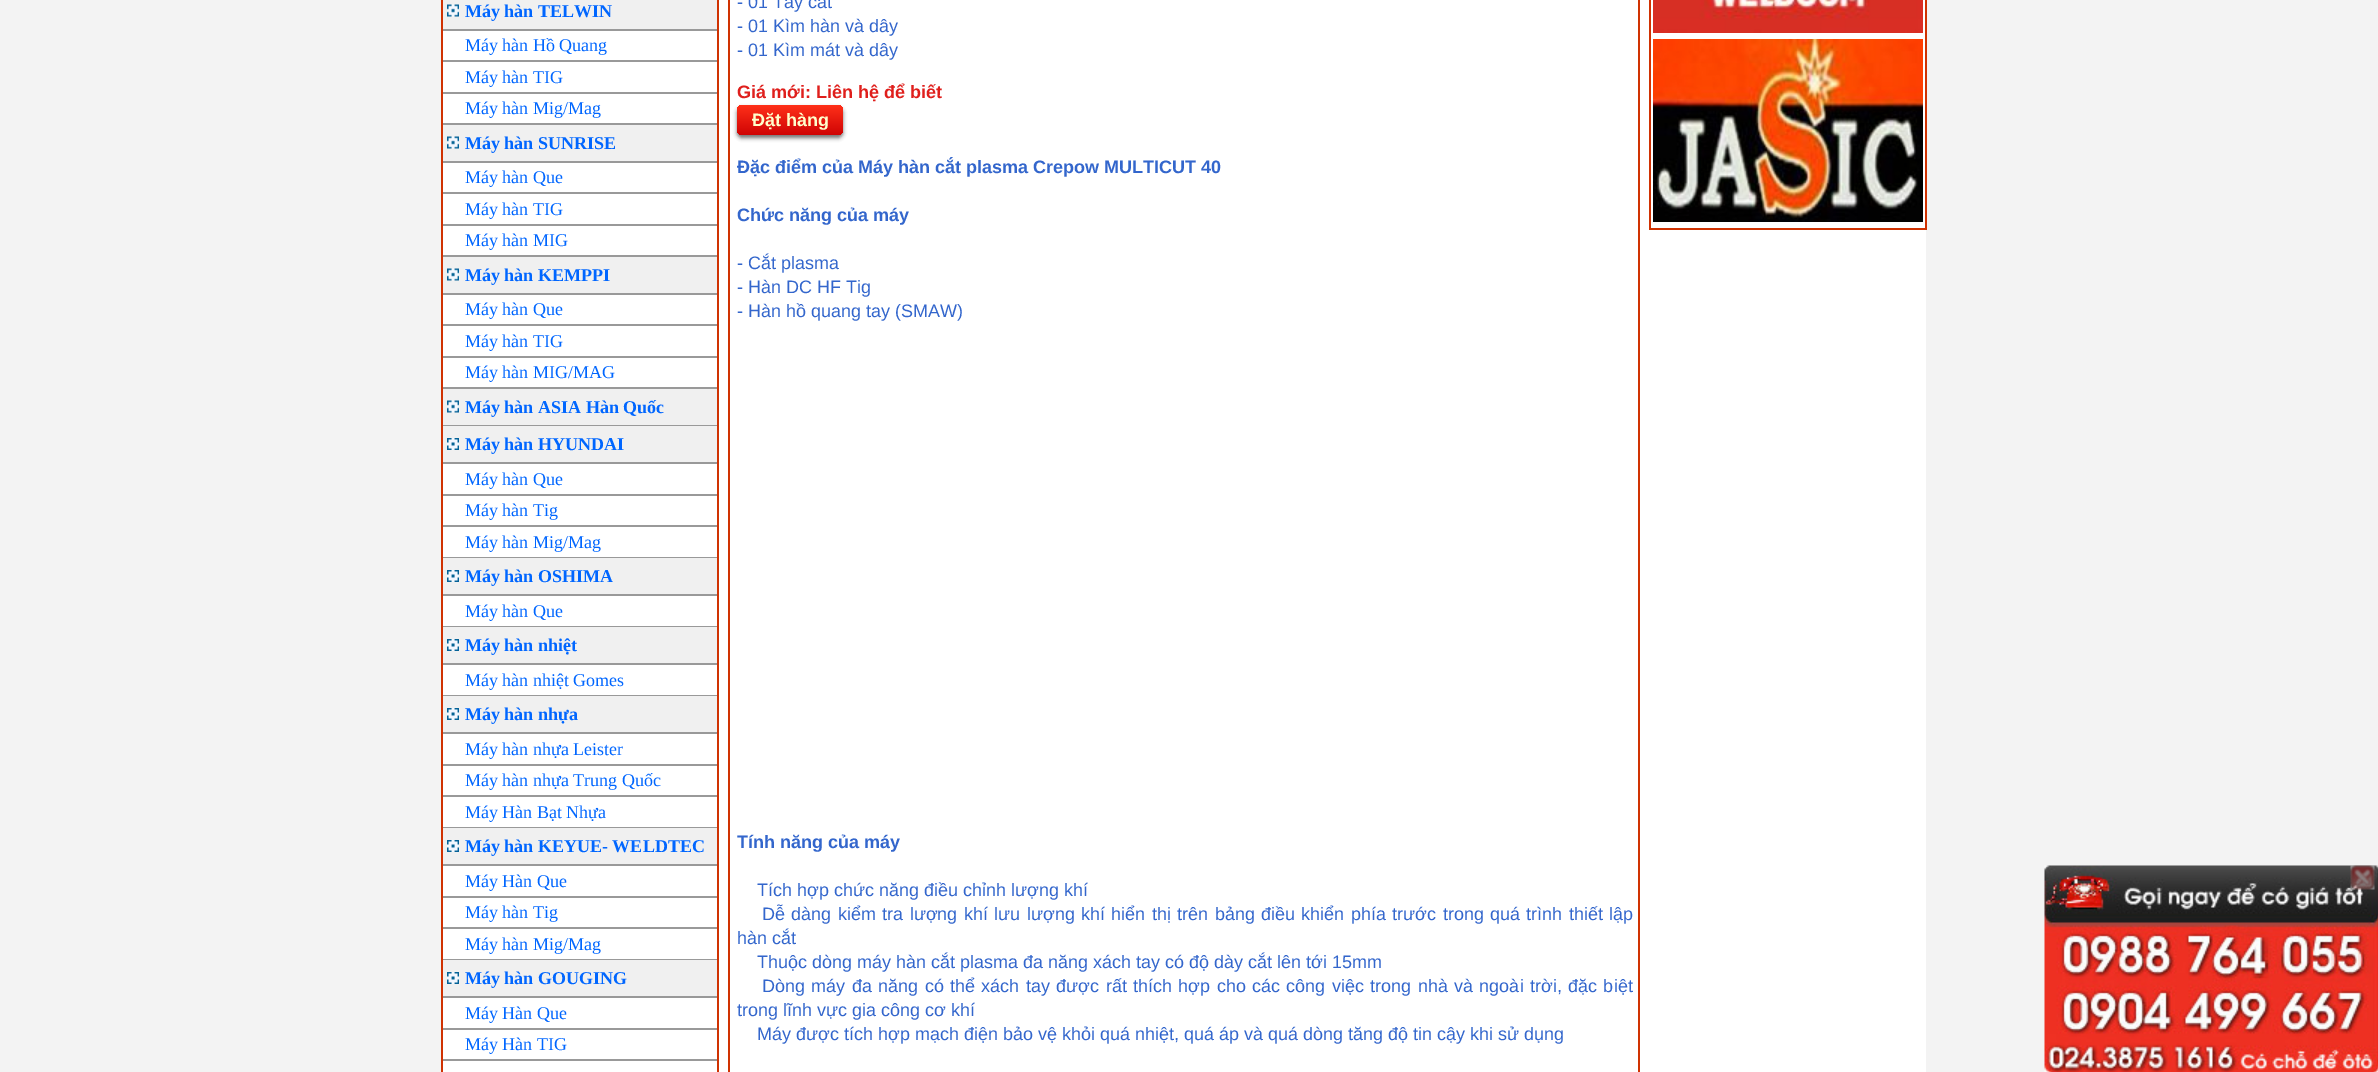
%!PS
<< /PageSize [2378 1072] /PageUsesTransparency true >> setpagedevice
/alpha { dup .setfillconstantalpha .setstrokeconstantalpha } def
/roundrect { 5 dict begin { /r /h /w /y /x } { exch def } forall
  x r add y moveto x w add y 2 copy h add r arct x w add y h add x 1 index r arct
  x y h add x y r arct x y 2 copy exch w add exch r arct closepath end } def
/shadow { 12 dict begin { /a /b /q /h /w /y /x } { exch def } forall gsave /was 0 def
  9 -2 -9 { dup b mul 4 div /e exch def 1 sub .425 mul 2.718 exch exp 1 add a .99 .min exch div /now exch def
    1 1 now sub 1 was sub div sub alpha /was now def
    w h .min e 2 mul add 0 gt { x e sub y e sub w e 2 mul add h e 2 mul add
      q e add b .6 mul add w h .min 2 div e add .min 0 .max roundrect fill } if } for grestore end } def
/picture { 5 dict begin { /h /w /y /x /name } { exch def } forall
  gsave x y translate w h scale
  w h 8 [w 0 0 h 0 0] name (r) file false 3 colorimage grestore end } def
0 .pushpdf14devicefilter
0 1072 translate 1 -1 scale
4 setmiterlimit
0.953 setgray
0 0 2378 1072 rectfill
1 setgray
443 0 1483 1072 rectfill
0.816 0.196 0.008 setrgbcolor
717 0 2 1072 rectfill
441 0 2 1072 rectfill
0.941 setgray
443 0 274 29 rectfill
(img1.rgb) 447 4 12 13 picture
0.6 setgray
443 29 274 2 rectfill
/LiberationSerif-Bold [18 0 0 -18 0 0] selectfont
0 0.4 1 setrgbcolor
465 17 moveto (Máy hàn TELWIN) show
0.6 setgray
443 60 274 2 rectfill
/LiberationSerif-Regular [18 0 0 -18 0 0] selectfont
0 0.4 1 setrgbcolor
465 51 moveto (Máy hàn Hồ Quang) show
0.6 setgray
443 92 274 2 rectfill
0 0.4 1 setrgbcolor
465 83 moveto (Máy hàn TIG) show
0.6 setgray
443 123 274 2 rectfill
0 0.4 1 setrgbcolor
465 114 moveto (Máy hàn Mig/Mag) show
0.941 setgray
443 125 274 36 rectfill
(img1.rgb) 447 136 12 13 picture
0.6 setgray
443 161 274 2 rectfill
/LiberationSerif-Bold [18 0 0 -18 0 0] selectfont
0 0.4 1 setrgbcolor
465 149 moveto (Máy hàn SUNRISE) show
0.6 setgray
443 192 274 2 rectfill
/LiberationSerif-Regular [18 0 0 -18 0 0] selectfont
0 0.4 1 setrgbcolor
465 183 moveto (Máy hàn Que) show
0.6 setgray
443 224 274 2 rectfill
0 0.4 1 setrgbcolor
465 215 moveto (Máy hàn TIG) show
0.6 setgray
443 255 274 2 rectfill
0 0.4 1 setrgbcolor
465 246 moveto (Máy hàn MIG) show
0.941 setgray
443 257 274 36 rectfill
(img1.rgb) 447 268 12 13 picture
0.6 setgray
443 293 274 2 rectfill
/LiberationSerif-Bold [18 0 0 -18 0 0] selectfont
0 0.4 1 setrgbcolor
465 281 moveto (Máy hàn KEMPPI) show
0.6 setgray
443 324 274 2 rectfill
/LiberationSerif-Regular [18 0 0 -18 0 0] selectfont
0 0.4 1 setrgbcolor
465 315 moveto (Máy hàn Que) show
0.6 setgray
443 356 274 2 rectfill
0 0.4 1 setrgbcolor
465 347 moveto (Máy hàn TIG) show
0.6 setgray
443 387 274 2 rectfill
0 0.4 1 setrgbcolor
465 378 moveto (Máy hàn MIG/MAG) show
0.941 setgray
443 389 274 36 rectfill
(img1.rgb) 447 400 12 13 picture
0.6 setgray
443 425 274 1 rectfill
/LiberationSerif-Bold [18 0 0 -18 0 0] selectfont
0 0.4 1 setrgbcolor
465 413 moveto (Máy hàn ASIA Hàn Quốc) show
0.941 setgray
443 426 274 36 rectfill
(img2.rgb) 447 438 12 12 picture
0.6 setgray
443 462 274 2 rectfill
0 0.4 1 setrgbcolor
465 450 moveto (Máy hàn HYUNDAI) show
0.6 setgray
443 494 274 2 rectfill
/LiberationSerif-Regular [18 0 0 -18 0 0] selectfont
0 0.4 1 setrgbcolor
465 485 moveto (Máy hàn Que) show
0.6 setgray
443 525 274 2 rectfill
0 0.4 1 setrgbcolor
465 516 moveto (Máy hàn Tig) show
0.6 setgray
443 557 274 1 rectfill
0 0.4 1 setrgbcolor
465 548 moveto (Máy hàn Mig/Mag) show
0.941 setgray
443 558 274 36 rectfill
(img2.rgb) 447 570 12 12 picture
0.6 setgray
443 594 274 2 rectfill
/LiberationSerif-Bold [18 0 0 -18 0 0] selectfont
0 0.4 1 setrgbcolor
465 582 moveto (Máy hàn OSHIMA) show
0.6 setgray
443 626 274 1 rectfill
/LiberationSerif-Regular [18 0 0 -18 0 0] selectfont
0 0.4 1 setrgbcolor
465 617 moveto (Máy hàn Que) show
0.941 setgray
443 627 274 36 rectfill
(img2.rgb) 447 639 12 12 picture
0.6 setgray
443 663 274 2 rectfill
/LiberationSerif-Bold [18 0 0 -18 0 0] selectfont
0 0.4 1 setrgbcolor
465 651 moveto (Máy hàn nhiệt) show
0.6 setgray
443 695 274 1 rectfill
/LiberationSerif-Regular [18 0 0 -18 0 0] selectfont
0 0.4 1 setrgbcolor
465 686 moveto (Máy hàn nhiệt Gomes) show
0.941 setgray
443 696 274 36 rectfill
(img2.rgb) 447 708 12 12 picture
0.6 setgray
443 732 274 2 rectfill
/LiberationSerif-Bold [18 0 0 -18 0 0] selectfont
0 0.4 1 setrgbcolor
465 720 moveto (Máy hàn nhựa) show
0.6 setgray
443 764 274 2 rectfill
/LiberationSerif-Regular [18 0 0 -18 0 0] selectfont
0 0.4 1 setrgbcolor
465 755 moveto (Máy hàn nhựa Leister) show
0.6 setgray
443 795 274 2 rectfill
0 0.4 1 setrgbcolor
465 786 moveto (Máy hàn nhựa Trung Quốc) show
0.6 setgray
443 827 274 1 rectfill
0 0.4 1 setrgbcolor
465 818 moveto (Máy Hàn Bạt Nhựa) show
0.941 setgray
443 828 274 36 rectfill
(img2.rgb) 447 840 12 12 picture
0.6 setgray
443 864 274 2 rectfill
/LiberationSerif-Bold [18 0 0 -18 0 0] selectfont
0 0.4 1 setrgbcolor
465 852 moveto (Máy hàn KEYUE- WELDTEC) show
0.6 setgray
443 896 274 2 rectfill
/LiberationSerif-Regular [18 0 0 -18 0 0] selectfont
0 0.4 1 setrgbcolor
465 887 moveto (Máy Hàn Que) show
0.6 setgray
443 927 274 2 rectfill
0 0.4 1 setrgbcolor
465 918 moveto (Máy hàn Tig) show
0.6 setgray
443 959 274 1 rectfill
0 0.4 1 setrgbcolor
465 950 moveto (Máy hàn Mig/Mag) show
0.941 setgray
443 960 274 36 rectfill
(img2.rgb) 447 972 12 12 picture
0.6 setgray
443 996 274 2 rectfill
/LiberationSerif-Bold [18 0 0 -18 0 0] selectfont
0 0.4 1 setrgbcolor
465 984 moveto (Máy hàn GOUGING) show
0.6 setgray
443 1028 274 2 rectfill
/LiberationSerif-Regular [18 0 0 -18 0 0] selectfont
0 0.4 1 setrgbcolor
465 1019 moveto (Máy Hàn Que) show
0.6 setgray
443 1059 274 2 rectfill
0 0.4 1 setrgbcolor
465 1050 moveto (Máy Hàn TIG) show
0.816 0.196 0.008 setrgbcolor
1638 0 2 1072 rectfill
728 0 2 1072 rectfill
/LiberationSans-Regular [18 0 0 -18 0 0] selectfont
0.2 0.4 0.8 setrgbcolor
737 8 moveto (- 01 Tay cắt) show
737 32 moveto (- 01 Kìm hàn và dây) show
737 56 moveto (- 01 Kìm mát và dây) show
/LiberationSans-Bold [18 0 0 -18 0 0] selectfont
0.875 0.122 0.11 setrgbcolor
737 98 moveto (Giá mới: Liên hệ để biết) show
0 setgray
737 108 106 30 5 2 0.55 shadow
gsave 737 105 106 30 5 roundrect clip newpath
<< /ShadingType 2 /ColorSpace /DeviceRGB /Coords [790 105 790 135] /Extend [true true] /Function << /FunctionType 2 /Domain [0 1] /C0 [1 0.188 0.098] /C1 [0.812 0.016 0.016] /N 1 >> >> shfill grestore
1 1 0.8 setrgbcolor
752 126 moveto (Đặt hàng) show
0.2 0.4 0.8 setrgbcolor
737 173 moveto (Đặc điểm của Máy hàn cắt plasma Crepow MULTICUT 40) show
737 221 moveto (Chức năng của máy) show
/LiberationSans-Regular [18 0 0 -18 0 0] selectfont
737 269 moveto (- Cắt plasma) show
737 293 moveto (- Hàn DC HF Tig) show
737 317 moveto (- Hàn hồ quang tay \(SMAW\)) show
/LiberationSans-Bold [18 0 0 -18 0 0] selectfont
737 848 moveto (Tính năng của máy) show
/LiberationSans-Regular [18 0 0 -18 0 0] selectfont
757 896 moveto (Tích hợp chức năng điều chỉnh lượng khí) show
762 920 moveto 1.4 0 32 (Dễ dàng kiểm tra lượng khí lưu lượng khí hiển thị trên bảng điều khiển phía trước trong quá trình thiết lập) widthshow
737 944 moveto (hàn cắt) show
757 968 moveto (Thuộc dòng máy hàn cắt plasma đa năng xách tay có độ dày cắt lên tới 15mm) show
762 992 moveto 1.4 0 32 (Dòng máy đa năng có thể xách tay được rất thích hợp cho các công việc trong nhà và ngoài trời, đặc biệt) widthshow
737 1016 moveto (trong lĩnh vực gia công cơ khí) show
757 1040 moveto (Máy được tích hợp mạch điện bảo vệ khỏi quá nhiệt, quá áp và quá dòng tăng độ tin cậy khi sử dụng) show
0.816 0.196 0.008 setrgbcolor
1925 0 2 230 rectfill
1649 228 277 2 rectfill
1649 0 2 230 rectfill
(img3.rgb) 1653 0 270 33 picture
(img4.rgb) 1653 39 270 183 picture
(img5.rgb) 2044 865 334 207 picture
(img6.rgb) 2350 865 25 25 picture
.poppdf14devicefilter showpage
